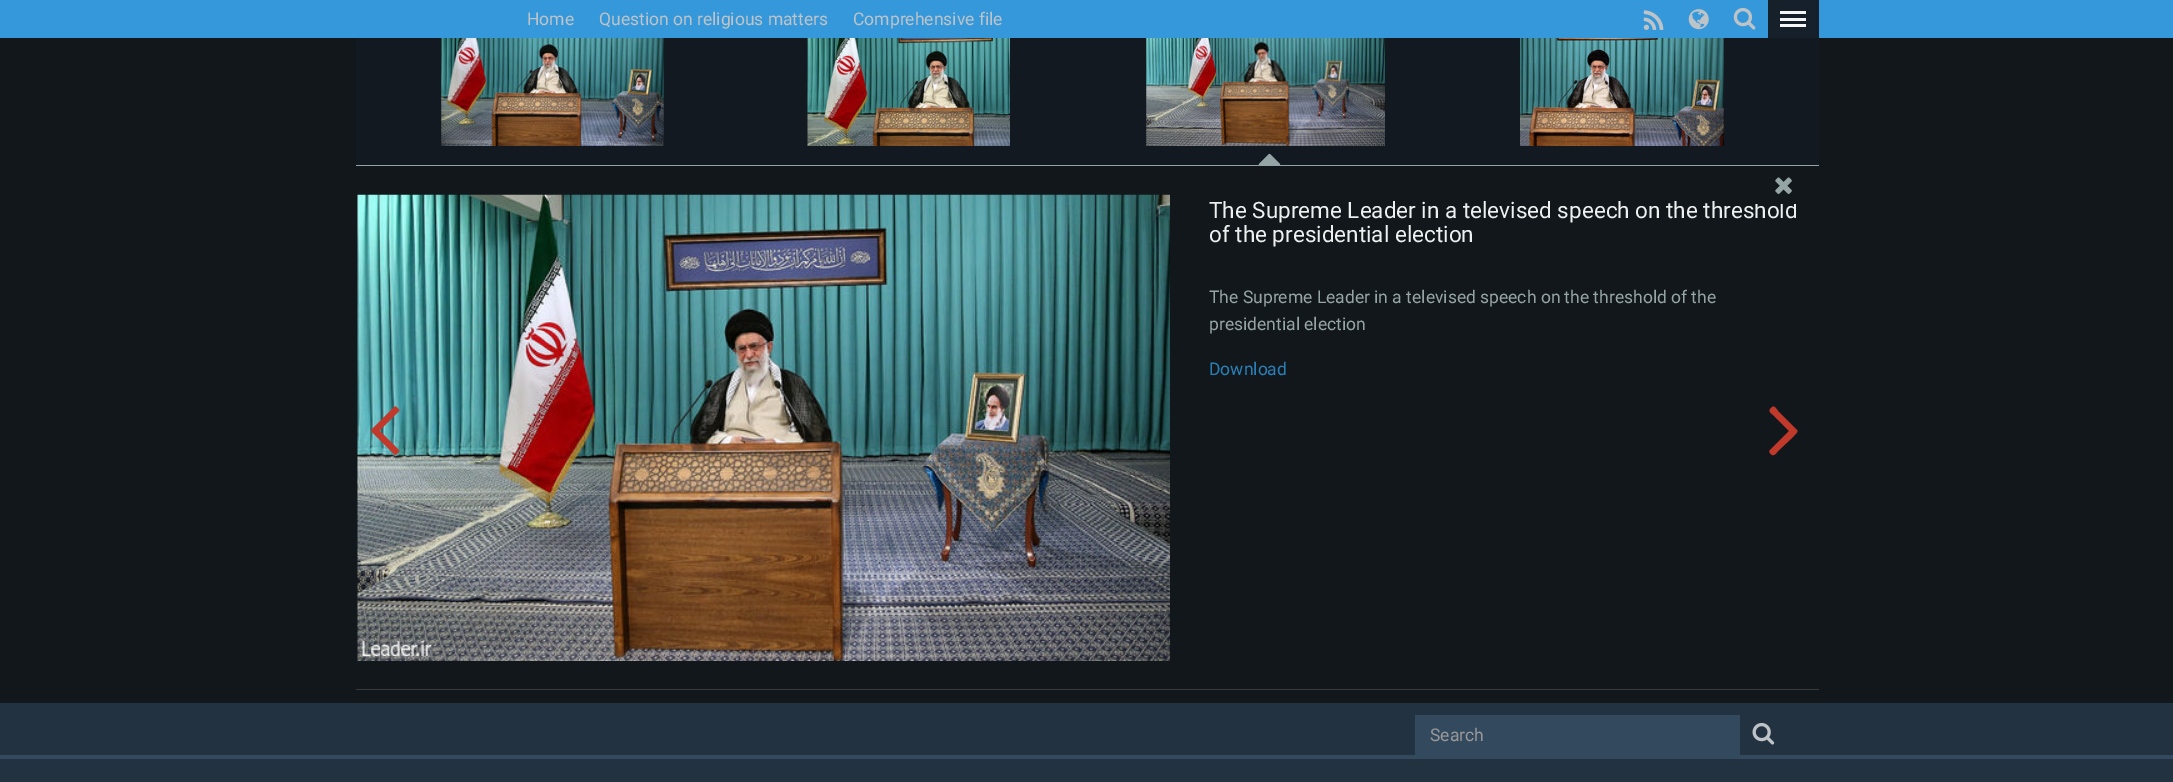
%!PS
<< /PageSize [2173 782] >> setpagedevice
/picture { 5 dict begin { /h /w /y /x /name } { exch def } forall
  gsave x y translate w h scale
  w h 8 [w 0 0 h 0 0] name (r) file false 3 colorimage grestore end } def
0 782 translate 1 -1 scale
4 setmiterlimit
0.071 0.09 0.106 setrgbcolor
0 0 2173 782 rectfill
0.204 0.596 0.859 setrgbcolor
0 0 2173 38 rectfill
/Roboto-Regular [17.5 0 0 -17.5 0 0] selectfont
0.741 0.765 0.78 setrgbcolor
527 25 moveto (Home) show
599 25 moveto (Question on religious matters) show
853 25 moveto (Comprehensive file) show
(img1.rgb) 1643 10 21 20 picture
(img2.rgb) 1688 9 21 21 picture
(img3.rgb) 1733 7 23 23 picture
0.086 0.125 0.165 setrgbcolor
1768 0 51 38 rectfill
0.961 setgray
1780 11 26 3 rectfill
1780 18 26 3 rectfill
1780 24 26 3 rectfill
0.071 0.098 0.129 setrgbcolor
356 38 1463 127 rectfill
(img4.rgb) 441 38 223 108 picture
(img5.rgb) 807 38 203 108 picture
(img6.rgb) 1146 38 239 108 picture
(img7.rgb) 1258 153 23 12 picture
(img8.rgb) 1520 38 204 108 picture
0.584 0.647 0.651 setrgbcolor
356 165 1463 1 rectfill
0.227 0.235 0.231 setrgbcolor
356 689 1463 1 rectfill
(img9.rgb) 357 194 813 467 picture
/Roboto-Regular [22.5 0 0 -22.5 0 0] selectfont
0.925 0.941 0.945 setrgbcolor
1209 218 moveto (The Supreme Leader in a televised speech on the threshold) show
0.071 0.09 0.106 setrgbcolor
1755 201 41 3 rectfill
(img10.rgb) 1775 177 17 17 picture
0.925 0.941 0.945 setrgbcolor
1209 242 moveto (of the presidential election) show
/Roboto-Regular [17.5 0 0 -17.5 0 0] selectfont
0.584 0.647 0.651 setrgbcolor
1209 303 moveto (The Supreme Leader in a televised speech on the threshold of the) show
1209 330 moveto (presidential election) show
0.161 0.502 0.725 setrgbcolor
1209 375 moveto (Download) show
(img11.rgb) 371 406 29 49 picture
0.753 0.224 0.169 setrgbcolor
newpath 1797 430 moveto 1799 432 1794 435 1794 436 curveto 1778 451 lineto 1778 451 1775 456 1772 455 curveto 1771 454 1768 452 1770 450 curveto 1789 431 lineto 1776 418 lineto 1772 413 1767 412 1771 408 curveto 1774 405 1775 407 1778 411 curveto closepath fill
0.133 0.196 0.255 setrgbcolor
0 703 2173 79 rectfill
0.2 0.286 0.369 setrgbcolor
1415 715 325 40 rectfill
0.6 setgray
1430 741 moveto (Search) show
(img12.rgb) 1752 722 23 23 picture
0.2 0.286 0.369 setrgbcolor
0 755 2173 4 rectfill
showpage
